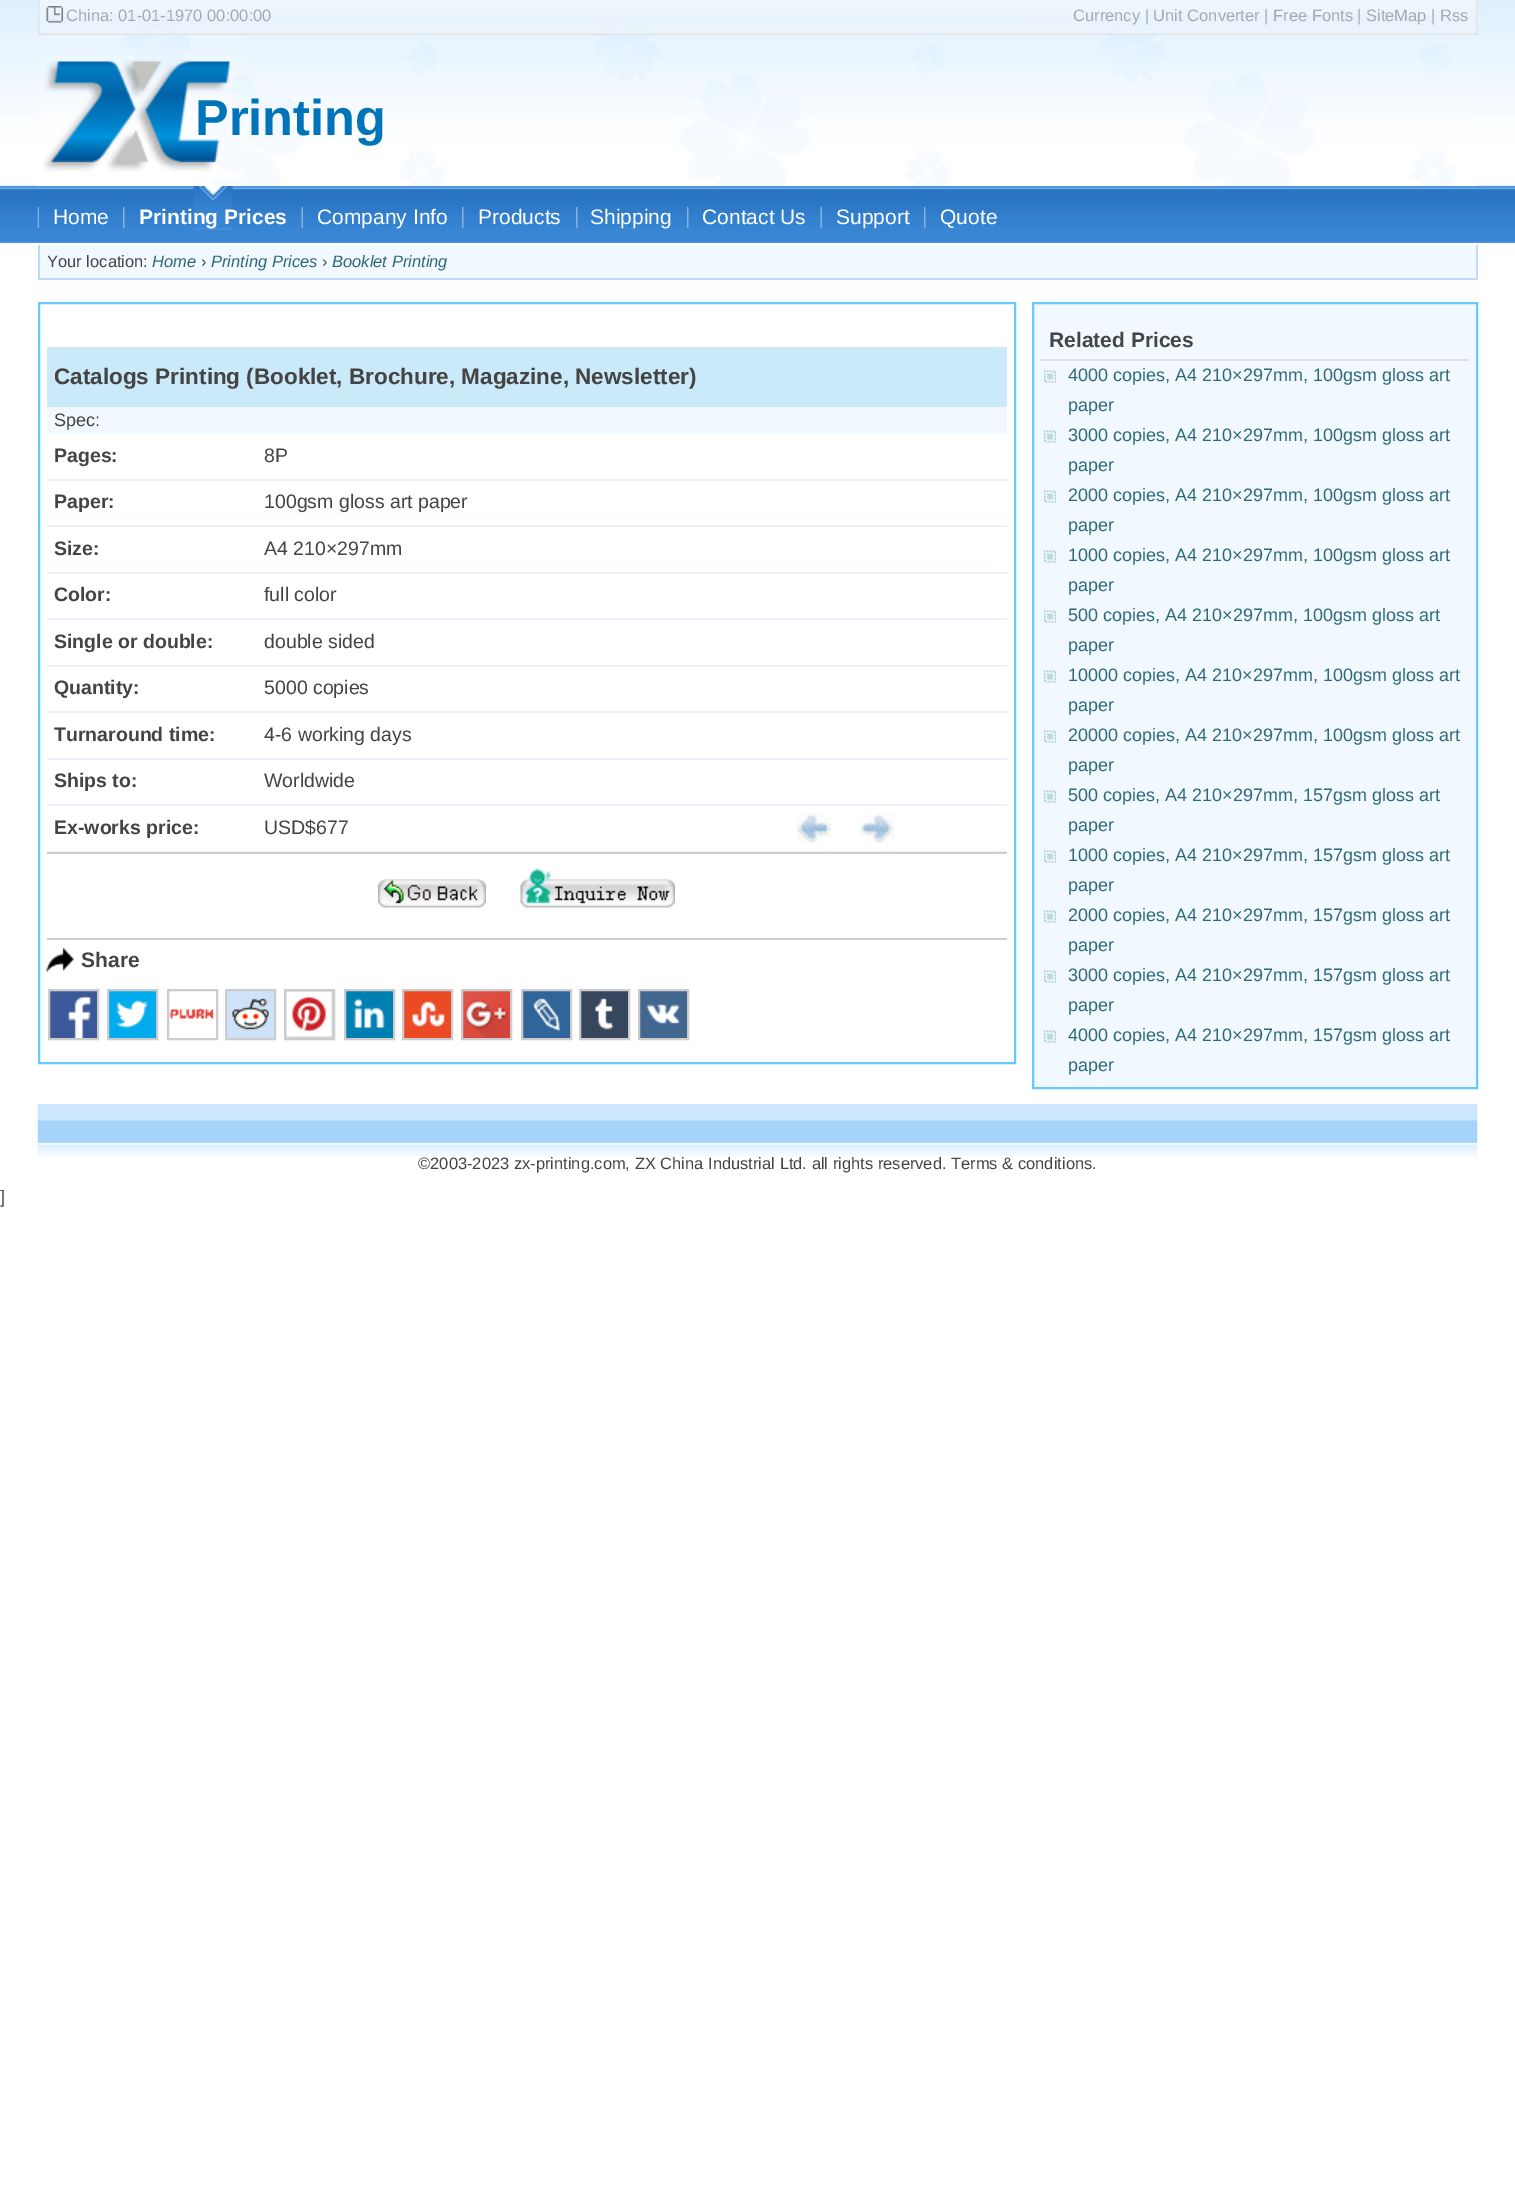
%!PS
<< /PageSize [1515 2206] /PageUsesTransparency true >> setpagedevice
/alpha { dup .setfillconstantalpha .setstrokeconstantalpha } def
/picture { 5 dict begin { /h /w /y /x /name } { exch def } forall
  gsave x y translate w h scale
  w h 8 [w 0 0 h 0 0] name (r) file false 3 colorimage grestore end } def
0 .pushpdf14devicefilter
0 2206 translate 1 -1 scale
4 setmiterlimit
1 setgray
0 0 1515 2206 rectfill
(img1.rgb) 0 0 1515 243 picture
(img4.rgb) 37 17 1441 169 picture
(img5.rgb) 42 10 201 169 picture
0.5 alpha
0.945 0.973 0.996 setrgbcolor
38 0 1440 35 rectfill
1 alpha
(img2.rgb) 38 0 1439 35 picture
0.5 alpha
0.867 setgray
1476 0 2 35 rectfill
38 33 1440 2 rectfill
38 0 2 35 rectfill
1 alpha
(img3.rgb) 46 6 17 17 picture
/LiberationSans-Regular [16.5 0 0 -16.5 0 0] selectfont
0.647 0.667 0.686 setrgbcolor
66 21 moveto (China: 01-01-1970 00:00:00) show
1073 21 moveto (Currency | Unit Converter) show
1264 21 moveto (|) show
1273 21 moveto (Free Fonts) show
1357 21 moveto (|) show
1366 21 moveto (SiteMap) show
1431 21 moveto (|) show
1440 21 moveto (Rss) show
/LiberationSans-Bold [50.5 0 0 -50.5 0 0] selectfont
0 0.455 0.725 setrgbcolor
195 135 moveto (Printing) show
(img6.rgb) 37 207 2 21 picture
/LiberationSans-Regular [21 0 0 -21 0 0] selectfont
1 setgray
53 224 moveto (Home) show
(img7.rgb) 193 186 40 44 picture
(img8.rgb) 123 207 2 21 picture
/LiberationSans-Bold [21 0 0 -21 0 0] selectfont
139 224 moveto (Printing Prices) show
(img9.rgb) 301 207 2 21 picture
/LiberationSans-Regular [21 0 0 -21 0 0] selectfont
317 224 moveto (Company Info) show
(img8.rgb) 462 207 2 21 picture
478 224 moveto (Products) show
(img8.rgb) 576 207 2 21 picture
590 224 moveto (Shipping) show
(img8.rgb) 687 207 2 21 picture
702 224 moveto (Contact Us) show
(img9.rgb) 820 207 2 21 picture
836 224 moveto (Support) show
(img8.rgb) 924 207 2 21 picture
940 224 moveto (Quote) show
0.945 0.973 0.996 setrgbcolor
40 245 1436 33 rectfill
0.741 0.859 0.984 setrgbcolor
1476 245 2 34 rectfill
38 278 1440 2 rectfill
38 245 2 34 rectfill
/LiberationSans-Regular [16.5 0 0 -16.5 0 0] selectfont
0.267 setgray
47 267 moveto (Your location:) show
/LiberationSans-Italic [16.5 0 0 -16.5 0 0] selectfont
0.176 0.416 0.475 setrgbcolor
152 267 moveto (Home) show
/LiberationSans-Regular [16.5 0 0 -16.5 0 0] selectfont
0.267 setgray
201 267 moveto (›) show
/LiberationSans-Italic [16.5 0 0 -16.5 0 0] selectfont
0.176 0.416 0.475 setrgbcolor
211 267 moveto (Printing Prices) show
/LiberationSans-Regular [16.5 0 0 -16.5 0 0] selectfont
0.267 setgray
322 267 moveto (›) show
/LiberationSans-Italic [16.5 0 0 -16.5 0 0] selectfont
0.176 0.416 0.475 setrgbcolor
332 267 moveto (Booklet Printing) show
0.408 0.792 0.988 setrgbcolor
2 setlinewidth
39 303 976 760 rectstroke
0.792 0.914 0.976 setrgbcolor
47 347 960 60 rectfill
/LiberationSans-Bold [22.5 0 0 -22.5 0 0] selectfont
0.267 setgray
54 384 moveto (Catalogs Printing \(Booklet, Brochure, Magazine, Newsletter\)) show
0.945 0.973 0.996 setrgbcolor
47 407 960 27 rectfill
/LiberationSans-Regular [18 0 0 -18 0 0] selectfont
0.267 setgray
54 426 moveto (Spec:) show
0.922 0.937 0.988 setrgbcolor
47 479 960 2 rectfill
/LiberationSans-Bold [19.5 0 0 -19.5 0 0] selectfont
0.267 setgray
54 462 moveto (Pages:) show
/LiberationSans-Regular [19.5 0 0 -19.5 0 0] selectfont
264 462 moveto (8P) show
0.922 0.937 0.988 setrgbcolor
47 525 960 2 rectfill
/LiberationSans-Bold [19.5 0 0 -19.5 0 0] selectfont
0.267 setgray
54 508 moveto (Paper:) show
/LiberationSans-Regular [19.5 0 0 -19.5 0 0] selectfont
264 508 moveto (100gsm gloss art paper) show
0.922 0.937 0.988 setrgbcolor
47 572 960 2 rectfill
/LiberationSans-Bold [19.5 0 0 -19.5 0 0] selectfont
0.267 setgray
54 555 moveto (Size:) show
/LiberationSans-Regular [19.5 0 0 -19.5 0 0] selectfont
264 555 moveto (A4 210×297mm) show
0.922 0.937 0.988 setrgbcolor
47 618 960 2 rectfill
/LiberationSans-Bold [19.5 0 0 -19.5 0 0] selectfont
0.267 setgray
54 601 moveto (Color:) show
/LiberationSans-Regular [19.5 0 0 -19.5 0 0] selectfont
264 601 moveto (full color) show
0.922 0.937 0.988 setrgbcolor
47 665 960 2 rectfill
/LiberationSans-Bold [19.5 0 0 -19.5 0 0] selectfont
0.267 setgray
54 648 moveto (Single or double:) show
/LiberationSans-Regular [19.5 0 0 -19.5 0 0] selectfont
264 648 moveto (double sided) show
0.922 0.937 0.988 setrgbcolor
47 711 960 2 rectfill
/LiberationSans-Bold [19.5 0 0 -19.5 0 0] selectfont
0.267 setgray
54 694 moveto (Quantity:) show
/LiberationSans-Regular [19.5 0 0 -19.5 0 0] selectfont
264 694 moveto (5000 copies) show
0.922 0.937 0.988 setrgbcolor
47 758 960 2 rectfill
/LiberationSans-Bold [19.5 0 0 -19.5 0 0] selectfont
0.267 setgray
54 741 moveto (Turnaround time:) show
/LiberationSans-Regular [19.5 0 0 -19.5 0 0] selectfont
264 741 moveto (4-6 working days) show
0.922 0.937 0.988 setrgbcolor
47 804 960 2 rectfill
/LiberationSans-Bold [19.5 0 0 -19.5 0 0] selectfont
0.267 setgray
54 787 moveto (Ships to:) show
/LiberationSans-Regular [19.5 0 0 -19.5 0 0] selectfont
264 787 moveto (Worldwide) show
0.922 0.937 0.988 setrgbcolor
47 851 960 1 rectfill
/LiberationSans-Bold [19.5 0 0 -19.5 0 0] selectfont
0.267 setgray
54 834 moveto (Ex-works price:) show
/LiberationSans-Regular [19.5 0 0 -19.5 0 0] selectfont
264 834 moveto (USD$677) show
(img10.rgb) 796 813 35 30 picture
(img11.rgb) 859 813 35 30 picture
0.8 setgray
47 852 960 2 rectfill
(img12.rgb) 378 879 108 29 picture
(img13.rgb) 520 868 155 40 picture
(img14.rgb) 46 948 28 24 picture
47 938 960 2 rectfill
/LiberationSans-Bold [21 0 0 -21 0 0] selectfont
0.267 setgray
81 967 moveto (Share) show
(img15.rgb) 50 991 47 47 picture
0.8 setgray
49 990 49 49 rectstroke
(img16.rgb) 109 991 47 47 picture
108 990 49 49 rectstroke
(img17.rgb) 169 1007 45 12 picture
168 990 49 49 rectstroke
(img18.rgb) 227 991 47 47 picture
226 990 49 49 rectstroke
(img19.rgb) 286 991 47 47 picture
285 990 49 49 rectstroke
(img20.rgb) 346 991 47 47 picture
345 990 49 49 rectstroke
(img21.rgb) 404 991 47 47 picture
403 990 49 49 rectstroke
(img22.rgb) 463 991 47 47 picture
462 990 49 49 rectstroke
(img23.rgb) 523 991 47 47 picture
522 990 49 49 rectstroke
(img24.rgb) 581 991 47 47 picture
580 990 49 49 rectstroke
(img25.rgb) 640 991 47 47 picture
639 990 49 49 rectstroke
0.945 0.973 0.996 setrgbcolor
newpath 1033 303 moveto 1477 303 lineto 1477 1088 lineto 1033 1088 lineto closepath gsave fill grestore
0.408 0.792 0.988 setrgbcolor
stroke
0.875 0.878 0.882 setrgbcolor
1041 359 428 2 rectfill
0.267 setgray
1049 347 moveto (Related Prices) show
(img26.rgb) 1044 370 12 13 picture
/LiberationSans-Regular [18 0 0 -18 0 0] selectfont
0.176 0.416 0.475 setrgbcolor
1068 381 moveto (4000 copies, A4 210×297mm, 100gsm gloss art) show
1068 411 moveto (paper) show
(img26.rgb) 1044 430 12 13 picture
1068 441 moveto (3000 copies, A4 210×297mm, 100gsm gloss art) show
1068 471 moveto (paper) show
(img26.rgb) 1044 490 12 13 picture
1068 501 moveto (2000 copies, A4 210×297mm, 100gsm gloss art) show
1068 531 moveto (paper) show
(img26.rgb) 1044 550 12 13 picture
1068 561 moveto (1000 copies, A4 210×297mm, 100gsm gloss art) show
1068 591 moveto (paper) show
(img26.rgb) 1044 610 12 13 picture
1068 621 moveto (500 copies, A4 210×297mm, 100gsm gloss art) show
1068 651 moveto (paper) show
(img26.rgb) 1044 670 12 13 picture
1068 681 moveto (10000 copies, A4 210×297mm, 100gsm gloss art) show
1068 711 moveto (paper) show
(img26.rgb) 1044 730 12 13 picture
1068 741 moveto (20000 copies, A4 210×297mm, 100gsm gloss art) show
1068 771 moveto (paper) show
(img26.rgb) 1044 790 12 13 picture
1068 801 moveto (500 copies, A4 210×297mm, 157gsm gloss art) show
1068 831 moveto (paper) show
(img26.rgb) 1044 850 12 13 picture
1068 861 moveto (1000 copies, A4 210×297mm, 157gsm gloss art) show
1068 891 moveto (paper) show
(img26.rgb) 1044 910 12 13 picture
1068 921 moveto (2000 copies, A4 210×297mm, 157gsm gloss art) show
1068 951 moveto (paper) show
(img26.rgb) 1044 970 12 13 picture
1068 981 moveto (3000 copies, A4 210×297mm, 157gsm gloss art) show
1068 1011 moveto (paper) show
(img26.rgb) 1044 1030 12 13 picture
1068 1041 moveto (4000 copies, A4 210×297mm, 157gsm gloss art) show
1068 1071 moveto (paper) show
(img27.rgb) 37 1104 1441 53 picture
/LiberationSans-Regular [16.5 0 0 -16.5 0 0] selectfont
0.267 setgray
418 1169 moveto (©2003-2023 zx-printing.com, ZX China Industrial Ltd. all rights reserved. Terms & conditions.) show
/LiberationSans-Regular [18 0 0 -18 0 0] selectfont
0 1203 moveto (]) show
.poppdf14devicefilter showpage
